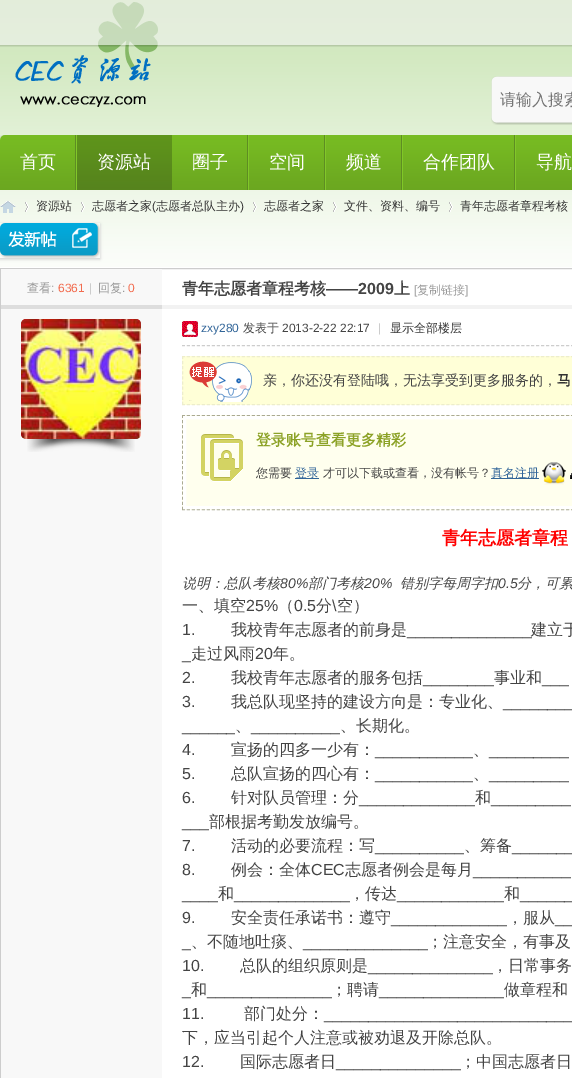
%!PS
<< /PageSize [572 1078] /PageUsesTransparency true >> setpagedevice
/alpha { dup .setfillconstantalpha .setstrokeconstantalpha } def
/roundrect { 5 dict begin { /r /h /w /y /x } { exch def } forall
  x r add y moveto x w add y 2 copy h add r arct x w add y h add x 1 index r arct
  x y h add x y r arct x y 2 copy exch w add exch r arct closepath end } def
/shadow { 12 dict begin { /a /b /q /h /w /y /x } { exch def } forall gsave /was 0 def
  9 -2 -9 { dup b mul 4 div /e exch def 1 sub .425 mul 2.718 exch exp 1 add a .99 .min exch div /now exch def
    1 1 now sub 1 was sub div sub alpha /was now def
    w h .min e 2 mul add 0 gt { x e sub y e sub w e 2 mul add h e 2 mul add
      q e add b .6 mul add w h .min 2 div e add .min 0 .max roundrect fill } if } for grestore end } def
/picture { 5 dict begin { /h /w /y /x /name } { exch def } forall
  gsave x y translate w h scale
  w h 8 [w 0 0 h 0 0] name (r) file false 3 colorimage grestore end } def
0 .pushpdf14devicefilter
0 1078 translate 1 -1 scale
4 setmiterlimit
1 setgray
0 0 572 1078 rectfill
(img1.rgb) 0 0 572 267 picture
(img2.rgb) 98 2 60 66 picture
(img3.rgb) 0 0 572 47 picture
(img4.rgb) 15 55 136 52 picture
(img5.rgb) 491 76 81 49 picture
/WenQuanYiZenHei-Medium [16 0 0 -16 0 0] selectfont
0.459 setgray
500 105 moveto (请输入搜索) show
gsave
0 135 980 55 rectclip
0.6 setgray
0 136 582 55 5 1.5 1 shadow
grestore
(img6.rgb) 0 135 572 55 picture
(img7.rgb) 75 135 2 55 picture
/WenQuanYiZenHei-Medium [18 0 0 -18 0 0] selectfont
1 setgray
20 168 moveto (首页) show
(img8.rgb) 77 135 95 55 picture
97 168 moveto (资源站) show
(img7.rgb) 247 135 2 55 picture
192 168 moveto (圈子) show
(img7.rgb) 324 135 2 55 picture
269 168 moveto (空间) show
(img7.rgb) 401 135 2 55 picture
346 168 moveto (频道) show
(img7.rgb) 514 135 2 55 picture
423 168 moveto (合作团队) show
536 168 moveto (导航) show
(img9.rgb) 0 201 16 12 picture
(img10.rgb) 25 202 4 10 picture
/WenQuanYiZenHei-Medium [12 0 0 -12 0 0] selectfont
0.2 setgray
36 210 moveto (资源站) show
(img10.rgb) 81 202 4 10 picture
92 210 moveto (志愿者之家) show
/LiberationSans-Regular [12 0 0 -12 0 0] selectfont
152 210 moveto (\() show
/WenQuanYiZenHei-Medium [12 0 0 -12 0 0] selectfont
156 210 moveto (志愿者总队主办) show
/LiberationSans-Regular [12 0 0 -12 0 0] selectfont
240 210 moveto (\)) show
(img10.rgb) 253 202 4 10 picture
/WenQuanYiZenHei-Medium [12 0 0 -12 0 0] selectfont
264 210 moveto (志愿者之家) show
(img10.rgb) 333 202 4 10 picture
344 210 moveto (文件、资料、编号) show
(img10.rgb) 449 202 4 10 picture
460 210 moveto (青年志愿者章程考核) show
gsave
newpath 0 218 moveto 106 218 lineto 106 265 lineto 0 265 lineto closepath 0 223 moveto 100 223 lineto 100 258 lineto 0 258 lineto closepath eoclip newpath
0.8 setgray
0 224 100 35 0 1.5 1 shadow
grestore
(img11.rgb) 0 223 100 35 picture
0.804 setgray
0.5 268.5 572 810 rectstroke
0.973 setgray
1 269 161 36 rectfill
0.6 setgray
27 292 moveto (查看) show
/LiberationSans-Regular [12 0 0 -12 0 0] selectfont
51 292 moveto (:) show
0.949 0.424 0.31 setrgbcolor
58 292 moveto (6361) show
0.8 setgray
89 292 moveto (|) show
/WenQuanYiZenHei-Medium [12 0 0 -12 0 0] selectfont
0.6 setgray
98 292 moveto (回复) show
/LiberationSans-Regular [12 0 0 -12 0 0] selectfont
122 292 moveto (:) show
0.949 0.424 0.31 setrgbcolor
128 292 moveto (0) show
/WenQuanYiZenHei-Bold [16 0 0 -16 0 0] selectfont
0.267 setgray
182 294 moveto (青年志愿者章程考核) show
/LiberationSans-Bold [16 0 0 -16 0 0] selectfont
326 294 moveto (——2009) show
/WenQuanYiZenHei-Bold [16 0 0 -16 0 0] selectfont
394 294 moveto (上) show
/LiberationSans-Regular [12 0 0 -12 0 0] selectfont
0.6 setgray
414 294 moveto ([) show
/WenQuanYiZenHei-Medium [12 0 0 -12 0 0] selectfont
417 294 moveto (复制链接) show
/LiberationSans-Regular [12 0 0 -12 0 0] selectfont
465 294 moveto (]) show
0.867 setgray
1 305 161 4 rectfill
0.949 setgray
162 305 410 4 rectfill
0.973 setgray
1 309 161 769 rectfill
(img12.rgb) 27 439 108 13 picture
(img13.rgb) 21 319 120 120 picture
(img14.rgb) 21 319 120 120 picture
0.804 setgray
[3 1.99] 0 setdash
newpath 182 345.5 moveto 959 345.5 lineto stroke
(img15.rgb) 182 321 16 16 picture
0.2 0.4 0.6 setrgbcolor
201 332 moveto (zxy280) show
/WenQuanYiZenHei-Medium [12 0 0 -12 0 0] selectfont
0.267 setgray
243 332 moveto (发表于) show
/LiberationSans-Regular [12 0 0 -12 0 0] selectfont
282 332 moveto (2013-2-22 22:17) show
0.8 setgray
378 332 moveto (|) show
/WenQuanYiZenHei-Medium [12 0 0 -12 0 0] selectfont
0.2 setgray
390 332 moveto (显示全部楼层) show
1 1 0.843 setrgbcolor
182 356 390 49 rectfill
(img16.rgb) 189 361 63 41 picture
0.929 0.929 0.8 setrgbcolor
newpath 182 356.5 moveto 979 356.5 lineto stroke
newpath 182 404.5 moveto 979 404.5 lineto stroke
[3 2.11] 0 setdash
newpath 182.5 356 moveto 182.5 405 lineto stroke
/WenQuanYiZenHei-Medium [14 0 0 -14 0 0] selectfont
0.267 setgray
263 385 moveto (亲，你还没有登陆哦，无法享受到更多服务的，) show
/WenQuanYiZenHei-Bold [14 0 0 -14 0 0] selectfont
0.2 setgray
557 385 moveto (马) show
1 1 0.933 setrgbcolor
182 415 390 95 rectfill
0.667 0.667 0.573 setrgbcolor
[3 1.99] 0 setdash
newpath 182 415.5 moveto 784 415.5 lineto stroke
newpath 182 509.5 moveto 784 509.5 lineto stroke
[3 2.11] 0 setdash
newpath 182.5 415 moveto 182.5 510 lineto stroke
(img17.rgb) 201 434 42 48 picture
1 setgray
3 setlinewidth
[] 0 setdash
184.5 417.5 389 90 rectstroke
/WenQuanYiZenHei-Bold [15 0 0 -15 0 0] selectfont
0.549 0.635 0.149 setrgbcolor
256 445 moveto (登录账号查看更多精彩) show
/WenQuanYiZenHei-Medium [12 0 0 -12 0 0] selectfont
0.267 setgray
256 477 moveto (您需要) show
0.2 0.4 0.6 setrgbcolor
295 478 24 1 rectfill
295 477 moveto (登录) show
0.267 setgray
323 477 moveto (才可以下载或查看，没有帐号？) show
0.2 0.4 0.6 setrgbcolor
491 478 48 1 rectfill
491 477 moveto (真名注册) show
(img18.rgb) 542 462 24 23 picture
(img19.rgb) 570 473 2 6 picture
/WenQuanYiZenHei-Bold [18 0 0 -18 0 0] selectfont
1 0 0 setrgbcolor
442 544 moveto (青年志愿者章程) show
/WenQuanYiZenHei-MediumItalic [14 0 0 -14 0 0] selectfont
0.267 setgray
182 588 moveto (说明：总队考核) show
/LiberationSans-Italic [14 0 0 -14 0 0] selectfont
280 588 moveto (80%) show
/WenQuanYiZenHei-MediumItalic [14 0 0 -14 0 0] selectfont
308 588 moveto (部门考核) show
/LiberationSans-Italic [14 0 0 -14 0 0] selectfont
364 588 moveto (20%) show
/WenQuanYiZenHei-MediumItalic [14 0 0 -14 0 0] selectfont
400 588 moveto (错别字每周字扣) show
/LiberationSans-Italic [14 0 0 -14 0 0] selectfont
498 588 moveto (0.5) show
/WenQuanYiZenHei-MediumItalic [14 0 0 -14 0 0] selectfont
517 588 moveto (分，可累) show
/WenQuanYiZenHei-Medium [16 0 0 -16 0 0] selectfont
182 611 moveto (一、填空) show
/LiberationSans-Regular [16 0 0 -16 0 0] selectfont
246 611 moveto (25%) show
/WenQuanYiZenHei-Medium [16 0 0 -16 0 0] selectfont
278 611 moveto (（) show
/LiberationSans-Regular [16 0 0 -16 0 0] selectfont
294 611 moveto (0.5) show
/WenQuanYiZenHei-Medium [16 0 0 -16 0 0] selectfont
316 611 moveto (分) show
/LiberationSans-Regular [16 0 0 -16 0 0] selectfont
332 611 moveto (\\) show
/WenQuanYiZenHei-Medium [16 0 0 -16 0 0] selectfont
337 611 moveto (空）) show
/LiberationSans-Regular [16 0 0 -16 0 0] selectfont
182 635 moveto (1.) show
/WenQuanYiZenHei-Medium [16 0 0 -16 0 0] selectfont
231 635 moveto (我校青年志愿者的前身是) show
/LiberationSans-Regular [16 0 0 -16 0 0] selectfont
407 635 moveto (______________) show
/WenQuanYiZenHei-Medium [16 0 0 -16 0 0] selectfont
531 635 moveto (建立于) show
191 659 moveto (走过风雨) show
/LiberationSans-Regular [16 0 0 -16 0 0] selectfont
255 659 moveto (20) show
/WenQuanYiZenHei-Medium [16 0 0 -16 0 0] selectfont
273 659 moveto (年。) show
/LiberationSans-Regular [16 0 0 -16 0 0] selectfont
182 659 moveto (_) show
182 683 moveto (2.) show
/WenQuanYiZenHei-Medium [16 0 0 -16 0 0] selectfont
231 683 moveto (我校青年志愿者的服务包括) show
/LiberationSans-Regular [16 0 0 -16 0 0] selectfont
423 683 moveto (________) show
/WenQuanYiZenHei-Medium [16 0 0 -16 0 0] selectfont
494 683 moveto (事业和) show
/LiberationSans-Regular [16 0 0 -16 0 0] selectfont
542 683 moveto (___) show
182 707 moveto (3.) show
/WenQuanYiZenHei-Medium [16 0 0 -16 0 0] selectfont
231 707 moveto (我总队现坚持的建设方向是：专业化、) show
/LiberationSans-Regular [16 0 0 -16 0 0] selectfont
503 707 moveto (________) show
/WenQuanYiZenHei-Medium [16 0 0 -16 0 0] selectfont
235 731 moveto (、) show
340 731 moveto (、长期化。) show
/LiberationSans-Regular [16 0 0 -16 0 0] selectfont
182 731 moveto (______) show
251 731 moveto (__________) show
182 755 moveto (4.) show
/WenQuanYiZenHei-Medium [16 0 0 -16 0 0] selectfont
231 755 moveto (宣扬的四多一少有：) show
473 755 moveto (、) show
/LiberationSans-Regular [16 0 0 -16 0 0] selectfont
375 755 moveto (___________) show
489 755 moveto (_________) show
182 779 moveto (5.) show
/WenQuanYiZenHei-Medium [16 0 0 -16 0 0] selectfont
231 779 moveto (总队宣扬的四心有：) show
473 779 moveto (、) show
/LiberationSans-Regular [16 0 0 -16 0 0] selectfont
375 779 moveto (___________) show
489 779 moveto (_________) show
182 803 moveto (6.) show
/WenQuanYiZenHei-Medium [16 0 0 -16 0 0] selectfont
231 803 moveto (针对队员管理：分) show
475 803 moveto (和) show
/LiberationSans-Regular [16 0 0 -16 0 0] selectfont
359 803 moveto (_____________) show
491 803 moveto (_________) show
182 827 moveto (___) show
/WenQuanYiZenHei-Medium [16 0 0 -16 0 0] selectfont
209 827 moveto (部根据考勤发放编号。) show
/LiberationSans-Regular [16 0 0 -16 0 0] selectfont
182 851 moveto (7.) show
/WenQuanYiZenHei-Medium [16 0 0 -16 0 0] selectfont
231 851 moveto (活动的必要流程：写) show
464 851 moveto (、筹备) show
/LiberationSans-Regular [16 0 0 -16 0 0] selectfont
375 851 moveto (__________) show
512 851 moveto (_______) show
182 875 moveto (8.) show
/WenQuanYiZenHei-Medium [16 0 0 -16 0 0] selectfont
231 875 moveto (例会：全体) show
/LiberationSans-Regular [16 0 0 -16 0 0] selectfont
311 875 moveto (CEC) show
/WenQuanYiZenHei-Medium [16 0 0 -16 0 0] selectfont
345 875 moveto (志愿者例会是每月) show
/LiberationSans-Regular [16 0 0 -16 0 0] selectfont
473 875 moveto (___________) show
/WenQuanYiZenHei-Medium [16 0 0 -16 0 0] selectfont
218 899 moveto (和) show
349 899 moveto (，传达) show
504 899 moveto (和) show
/LiberationSans-Regular [16 0 0 -16 0 0] selectfont
182 899 moveto (____) show
234 899 moveto (_____________) show
397 899 moveto (____________) show
520 899 moveto (______) show
182 923 moveto (9.) show
/WenQuanYiZenHei-Medium [16 0 0 -16 0 0] selectfont
231 923 moveto (安全责任承诺书：遵守) show
507 923 moveto (，服从) show
/LiberationSans-Regular [16 0 0 -16 0 0] selectfont
391 923 moveto (_____________) show
555 923 moveto (__) show
182 947 moveto (_) show
/WenQuanYiZenHei-Medium [16 0 0 -16 0 0] selectfont
191 947 moveto (、不随地吐痰、) show
/LiberationSans-Regular [16 0 0 -16 0 0] selectfont
303 947 moveto (______________) show
/WenQuanYiZenHei-Medium [16 0 0 -16 0 0] selectfont
427 947 moveto (；注意安全，有事及) show
/LiberationSans-Regular [16 0 0 -16 0 0] selectfont
182 971 moveto (10.) show
/WenQuanYiZenHei-Medium [16 0 0 -16 0 0] selectfont
240 971 moveto (总队的组织原则是) show
492 971 moveto (，日常事务) show
/LiberationSans-Regular [16 0 0 -16 0 0] selectfont
368 971 moveto (______________) show
182 995 moveto (_) show
/WenQuanYiZenHei-Medium [16 0 0 -16 0 0] selectfont
191 995 moveto (和) show
/LiberationSans-Regular [16 0 0 -16 0 0] selectfont
207 995 moveto (______________) show
/WenQuanYiZenHei-Medium [16 0 0 -16 0 0] selectfont
331 995 moveto (；聘请) show
/LiberationSans-Regular [16 0 0 -16 0 0] selectfont
379 995 moveto (______________) show
/WenQuanYiZenHei-Medium [16 0 0 -16 0 0] selectfont
504 995 moveto (做章程和) show
/LiberationSans-Regular [16 0 0 -16 0 0] selectfont
182 1019 moveto (11.) show
/WenQuanYiZenHei-Medium [16 0 0 -16 0 0] selectfont
244 1019 moveto (部门处分：) show
/LiberationSans-Regular [16 0 0 -16 0 0] selectfont
324 1019 moveto (____________________________) show
/WenQuanYiZenHei-Medium [16 0 0 -16 0 0] selectfont
182 1043 moveto (下，应当引起个人注意或被劝退及开除总队。) show
/LiberationSans-Regular [16 0 0 -16 0 0] selectfont
182 1067 moveto (12.) show
/WenQuanYiZenHei-Medium [16 0 0 -16 0 0] selectfont
240 1067 moveto (国际志愿者日) show
460 1067 moveto (；中国志愿者日) show
/LiberationSans-Regular [16 0 0 -16 0 0] selectfont
336 1067 moveto (______________) show
.poppdf14devicefilter showpage
